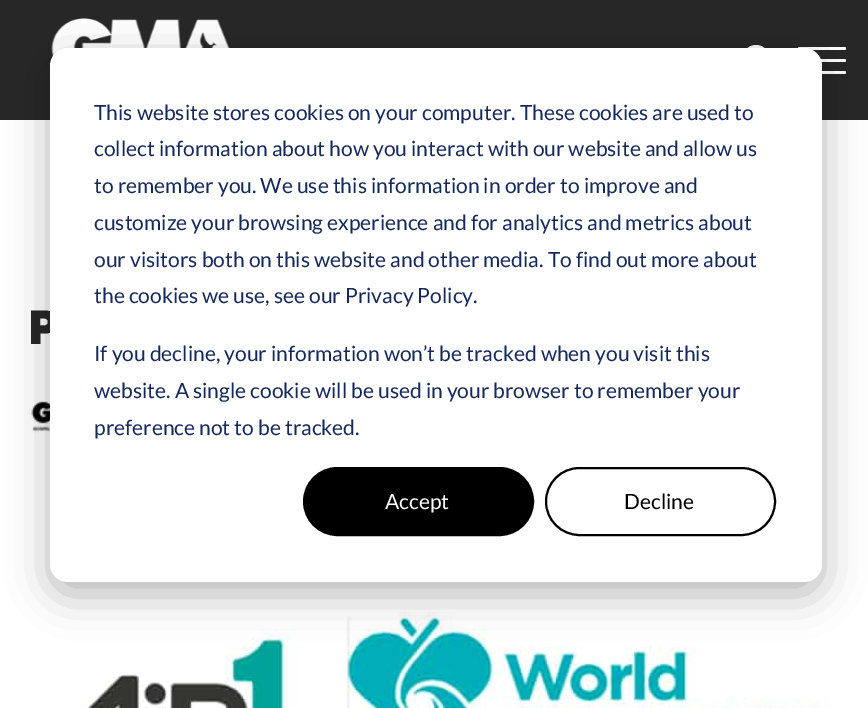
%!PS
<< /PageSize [868 708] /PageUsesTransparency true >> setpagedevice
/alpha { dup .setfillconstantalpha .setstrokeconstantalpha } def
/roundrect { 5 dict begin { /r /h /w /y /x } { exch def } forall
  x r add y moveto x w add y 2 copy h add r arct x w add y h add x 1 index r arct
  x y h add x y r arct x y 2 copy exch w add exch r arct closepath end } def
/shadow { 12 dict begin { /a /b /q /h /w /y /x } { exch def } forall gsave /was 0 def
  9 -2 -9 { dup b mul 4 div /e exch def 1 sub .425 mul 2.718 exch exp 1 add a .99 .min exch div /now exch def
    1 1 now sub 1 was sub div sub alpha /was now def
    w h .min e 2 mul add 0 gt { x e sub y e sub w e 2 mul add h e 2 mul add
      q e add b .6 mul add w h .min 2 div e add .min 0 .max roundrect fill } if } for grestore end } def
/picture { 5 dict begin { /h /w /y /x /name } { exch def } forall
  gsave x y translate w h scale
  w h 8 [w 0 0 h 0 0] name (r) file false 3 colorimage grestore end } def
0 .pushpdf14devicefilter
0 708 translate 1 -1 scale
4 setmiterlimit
1 setgray
0 0 868 708 rectfill
0.153 setgray
0 0 868 120 rectfill
(img1.rgb) 51 18 179 39 picture
1 setgray
3 setlinewidth
1 setlinecap
1 setlinejoin
newpath 756 70 moveto 771.5 70 771.5 46.5 756 46.5 curveto 740.5 46.5 740.5 70 756 70 curveto closepath stroke
798 47 48 3 1.5 roundrect fill
798 59 48 3 1.5 roundrect fill
798 71 48 3 1.5 roundrect fill
/Lexend-ExtraBold [48 0 0 -48 0 0] selectfont
0.153 setgray
27 344 moveto (P) show
(img2.rgb) 27 401 23 32 picture
(img3.rgb) 87 612 743 96 picture
0 setgray
50 60 772 534 18 21 0.28 shadow
1 setgray
50 48 772 534 18 roundrect fill
/Lato-Regular [21 0 0 -21 0 0] selectfont
0.082 0.161 0.353 setrgbcolor
94 120 moveto (This website stores cookies on your computer. These cookies are used to) show
94 156 moveto (collect information about how you interact with our website and allow us) show
94 193 moveto (to remember you. We use this information in order to improve and) show
94 230 moveto (customize your browsing experience and for analytics and metrics about) show
94 267 moveto (our visitors both on this website and other media. To find out more about) show
94 303 moveto (the cookies we use, see our Privacy Policy.) show
94 361 moveto (If you decline, your information won’t be tracked when you visit this) show
94 398 moveto (website. A single cookie will be used in your browser to remember your) show
94 435 moveto (preference not to be tracked.) show
0 setgray
304 468 229 67 33.5 roundrect gsave fill grestore
2 setlinewidth
0 setlinecap
0 setlinejoin
stroke
1 setgray
385 509 moveto (Accept) show
0 setgray
546 468 229 67 33.5 roundrect stroke
624 509 moveto (Decline) show
.poppdf14devicefilter showpage
